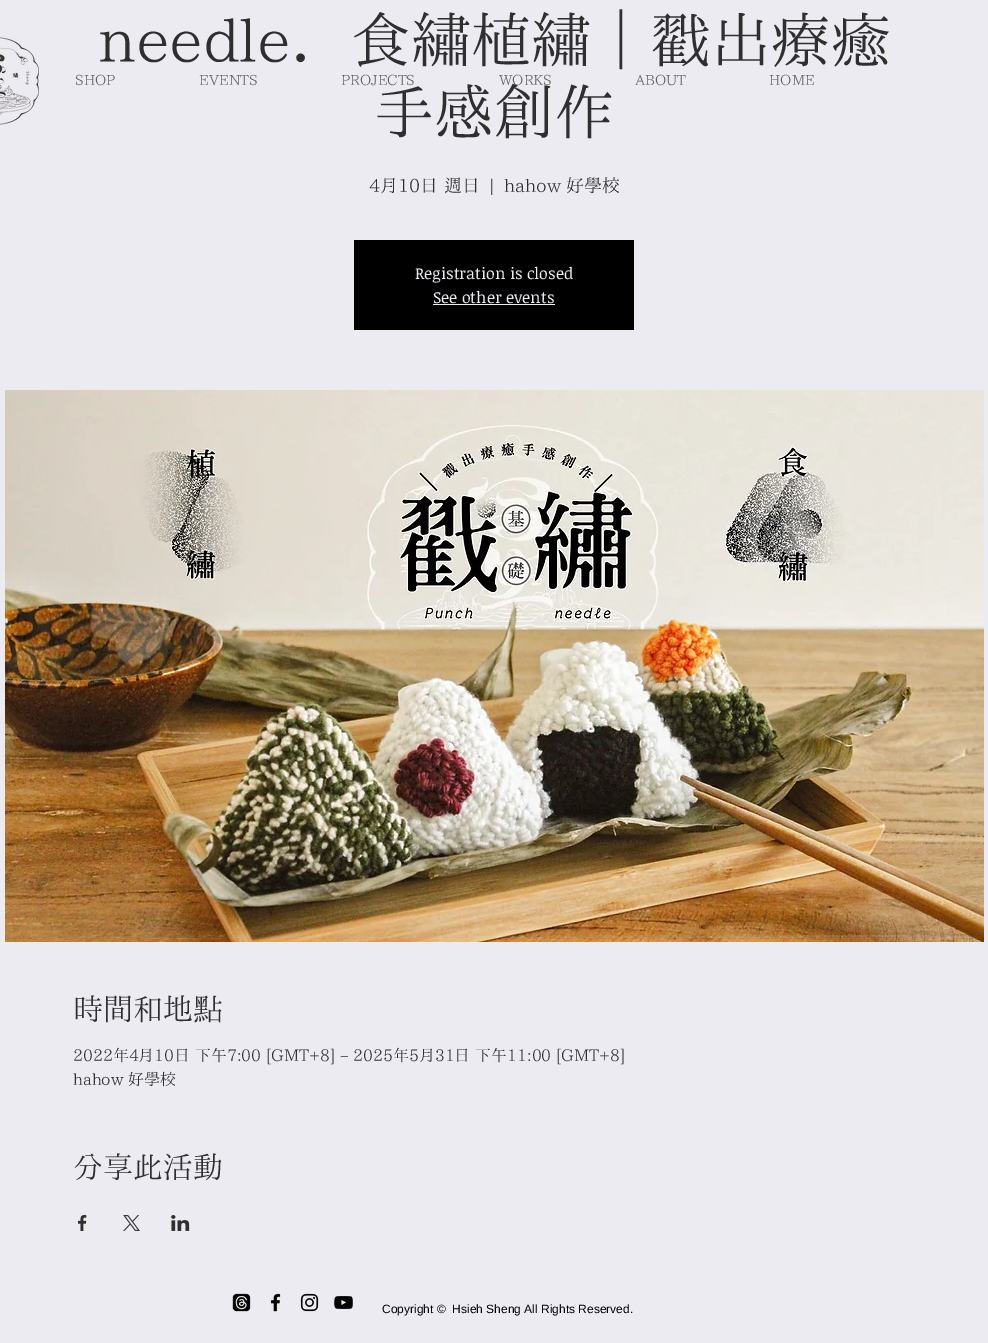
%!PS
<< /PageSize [988 1343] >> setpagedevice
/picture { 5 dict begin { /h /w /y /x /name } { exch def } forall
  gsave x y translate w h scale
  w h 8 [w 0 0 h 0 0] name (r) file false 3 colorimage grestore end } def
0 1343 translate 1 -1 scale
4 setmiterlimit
0.929 0.922 0.949 setrgbcolor
0 0 988 1343 rectfill
/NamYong-Regular [60 0 0 -60 0 0] selectfont
0.184 0.184 0.188 setrgbcolor
98 62 moveto (needle．食繡植繡｜戳出療癒) show
374 134 moveto (手感創作) show
/NamYong-Regular [18 0 0 -18 0 0] selectfont
369 192 moveto (4月10日 週日) show
490 192 moveto (|) show
504 192 moveto (hahow 好學校) show
0 setgray
354 240 280 90 rectfill
/NoticiaText-Regular [16 0 0 -16 0 0] selectfont
0.929 0.922 0.949 setrgbcolor
415 279 moveto (Registration is closed) show
433 303 moveto (See other events) show
433 304 122 1 rectfill
(img1.rgb) 5 390 979 552 picture
/NamYong-Regular [30 0 0 -30 0 0] selectfont
0.184 0.184 0.188 setrgbcolor
73 1020 moveto (時間和地點) show
/NamYong-Regular [16 0 0 -16 0 0] selectfont
73 1061 moveto (2022年4月10日 下午7:00 [GMT+8] – 2025年5月31日 下午11:00 [GMT+8]) show
73 1085 moveto (hahow 好學校) show
/NamYong-Regular [30 0 0 -30 0 0] selectfont
73 1178 moveto (分享此活動) show
(img2.rgb) 78 1215 9 16 picture
(img3.rgb) 123 1215 17 16 picture
(img4.rgb) 171 1215 19 16 picture
(img5.rgb) 0 37 39 88 picture
/NamYong-Regular [14 0 0 -14 0 0] selectfont
0.373 0.369 0.38 setrgbcolor
75 85 moveto (SHOP) show
199 85 moveto (EVENTS) show
341 85 moveto (PROJECTS) show
499 85 moveto (WORKS) show
635 85 moveto (ABOUT) show
769 85 moveto (HOME) show
(img6.rgb) 232 1293 19 19 picture
(img7.rgb) 270 1293 11 19 picture
(img8.rgb) 300 1293 19 19 picture
(img9.rgb) 334 1296 19 14 picture
/LiberationSans-Regular [12 0 0 -12 0 0] selectfont
0 setgray
382 1313 moveto (Copyright ©  Hsieh Sheng All Rights Reserved.) show
showpage
